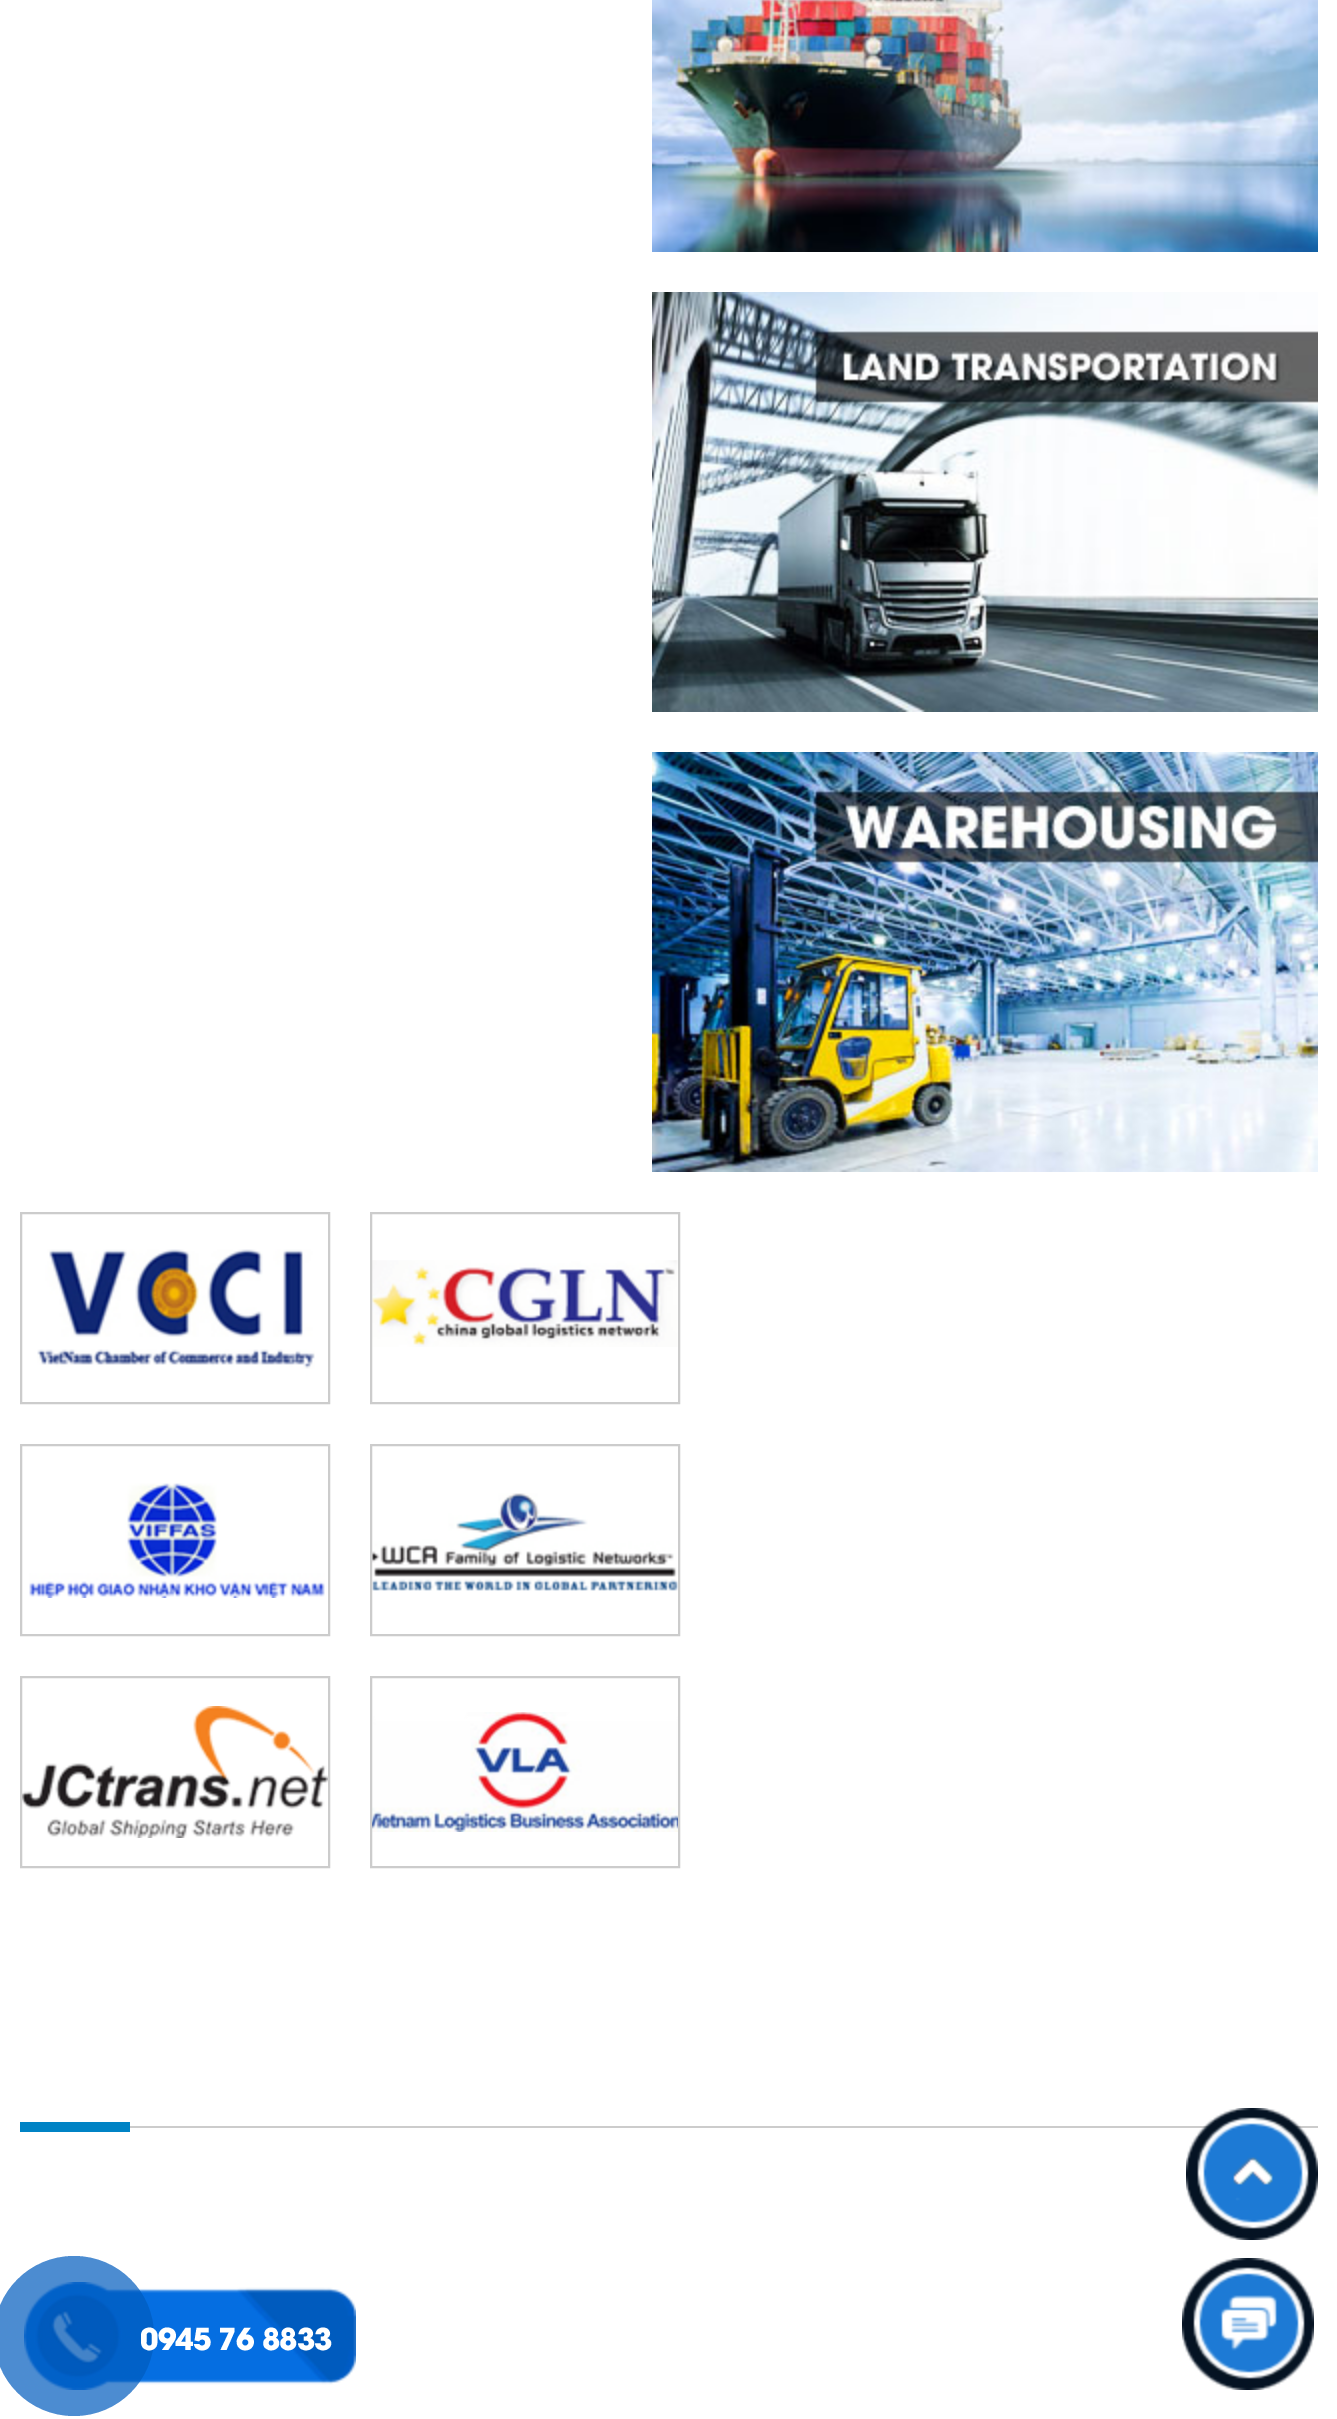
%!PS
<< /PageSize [1337 2419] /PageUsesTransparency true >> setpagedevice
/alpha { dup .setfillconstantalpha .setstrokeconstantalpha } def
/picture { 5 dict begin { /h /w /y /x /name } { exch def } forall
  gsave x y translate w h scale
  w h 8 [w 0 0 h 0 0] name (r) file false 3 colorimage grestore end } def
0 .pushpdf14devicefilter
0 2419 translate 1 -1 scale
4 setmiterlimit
1 setgray
0 0 1337 2419 rectfill
(img1.rgb) 652 0 666 252 picture
(img2.rgb) 652 292 666 420 picture
(img3.rgb) 652 752 666 420 picture
(img4.rgb) 37 1249 278 120 picture
0.8 setgray
2 setlinewidth
21 1213 308 190 rectstroke
(img5.rgb) 372 1260 306 87 picture
371 1213 308 190 rectstroke
(img6.rgb) 29 1483 296 115 picture
21 1445 308 190 rectstroke
(img7.rgb) 372 1493 306 98 picture
371 1445 308 190 rectstroke
(img8.rgb) 22 1706 306 132 picture
21 1677 308 190 rectstroke
(img9.rgb) 372 1712 306 120 picture
371 1677 308 190 rectstroke
0 0.514 0.773 setrgbcolor
20 2122 110 10 rectfill
0.8 setgray
130 2126 1188 2 rectfill
(img10.rgb) 1186 2108 132 132 picture
(img11.rgb) 24 2282 332 108 picture
0.7 alpha
0 0.357 0.745 setrgbcolor
newpath 74 2336 80 0 360 arc closepath fill
/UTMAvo-Bold [30 0 0 -30 0 0] selectfont
1 alpha
1 setgray
140 2350 moveto -1 0 (0945 76 8833) ashow
(img12.rgb) 1182 2258 132 132 picture
.poppdf14devicefilter showpage
